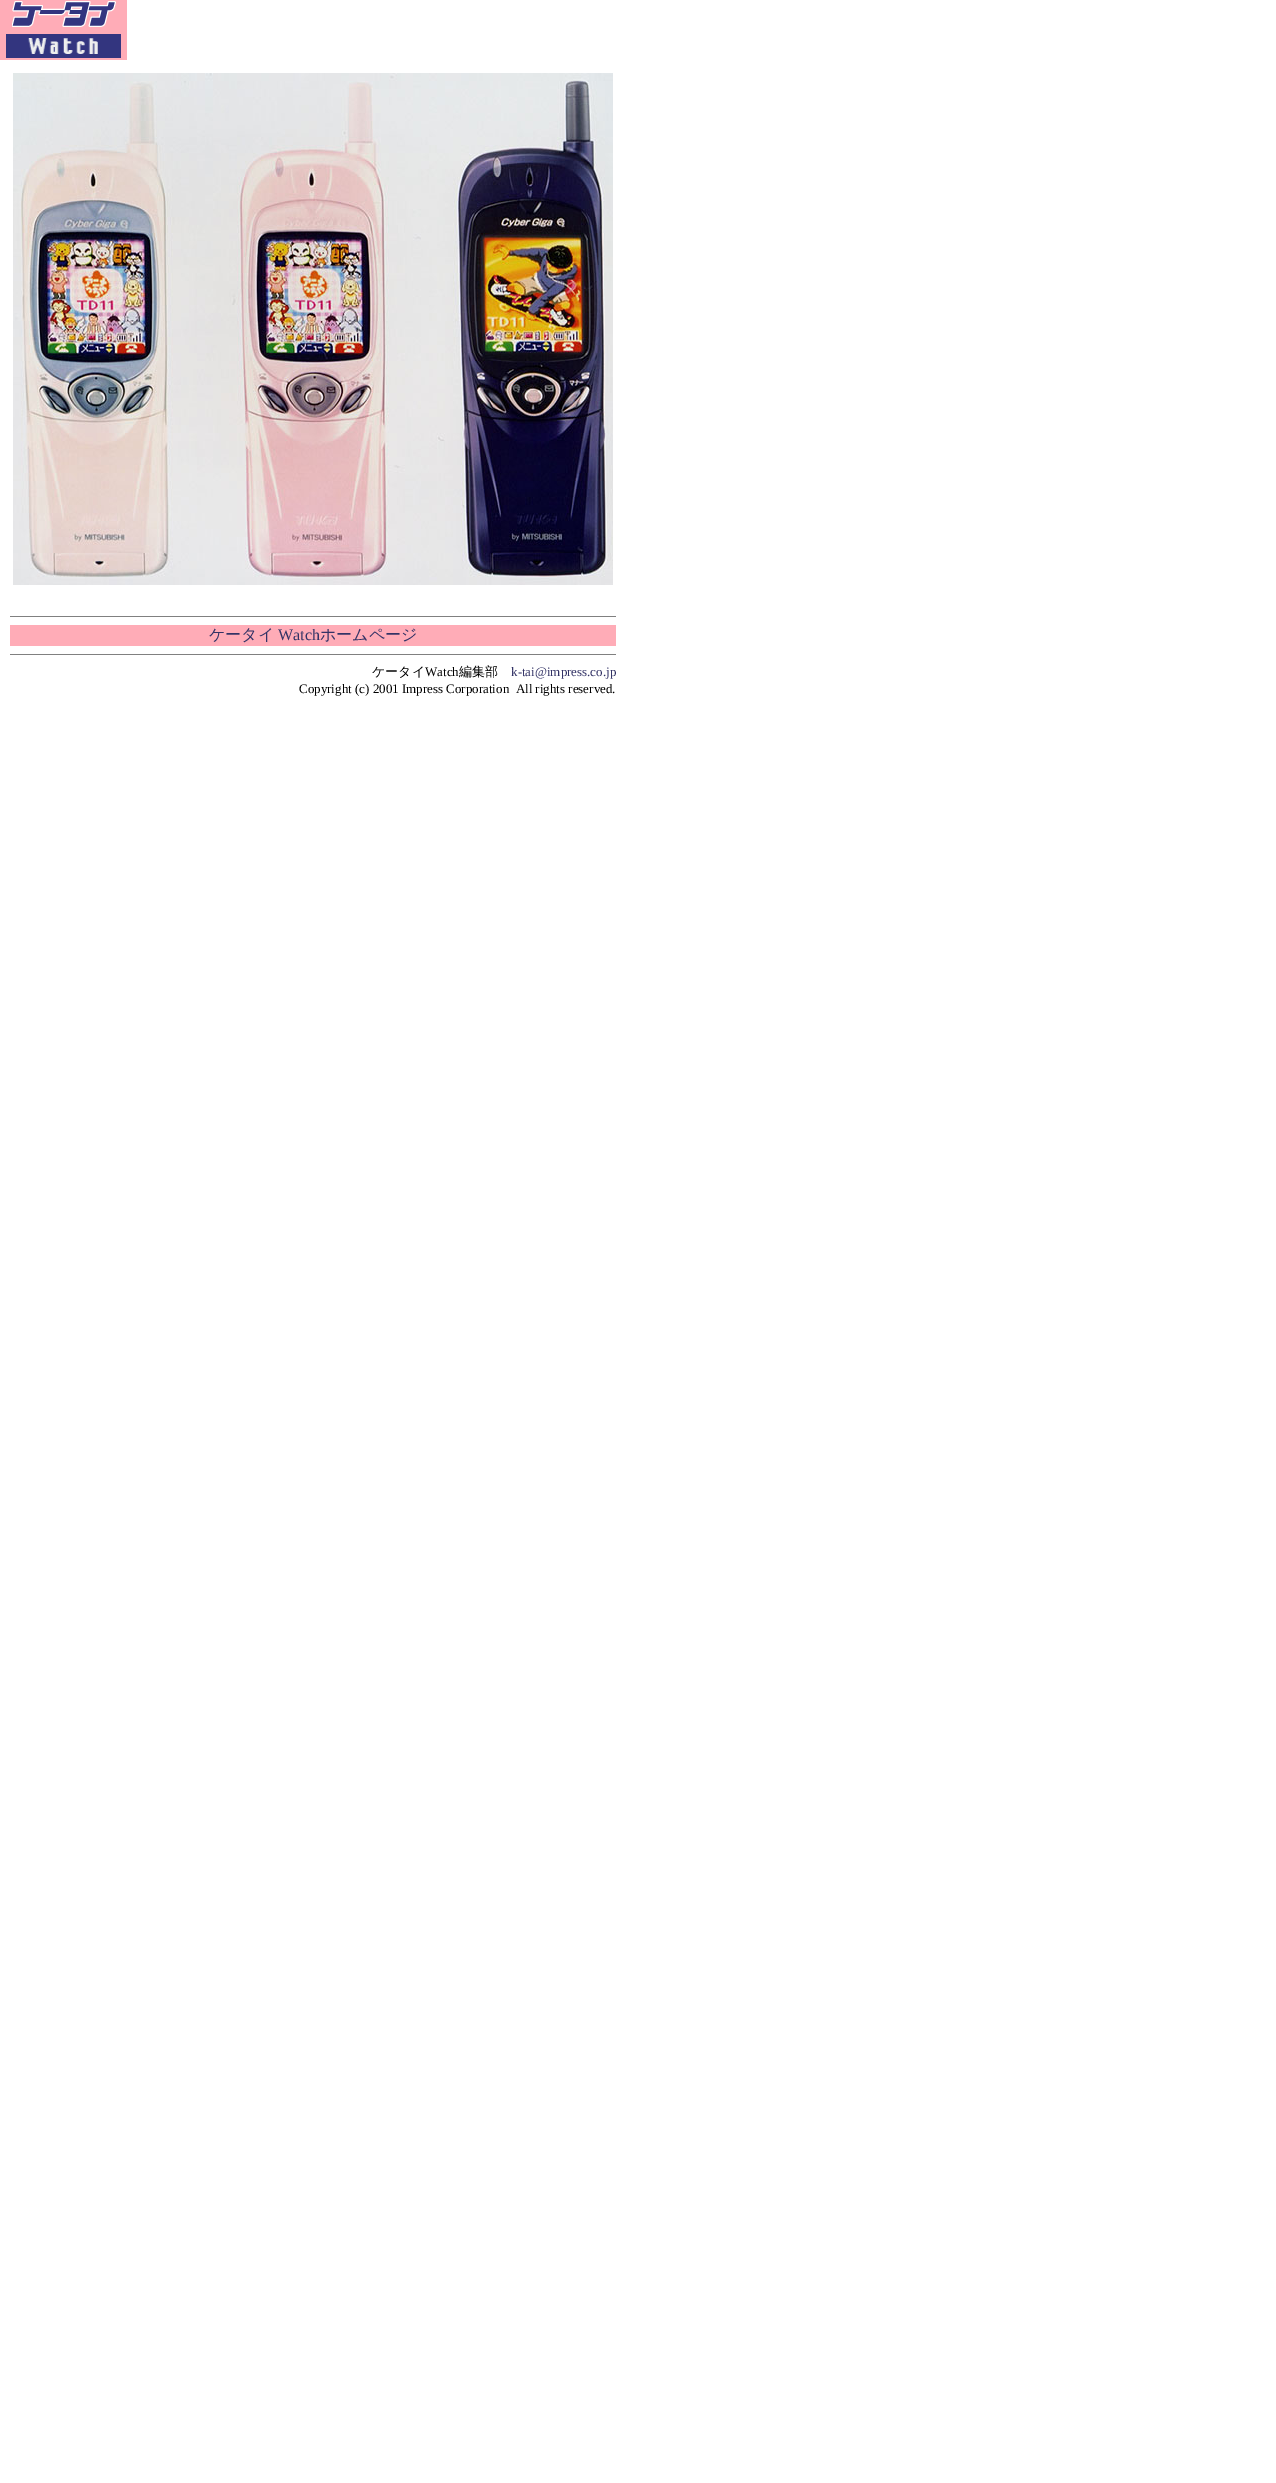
%!PS
<< /PageSize [1276 2483] >> setpagedevice
/picture { 5 dict begin { /h /w /y /x /name } { exch def } forall
  gsave x y translate w h scale
  w h 8 [w 0 0 h 0 0] name (r) file false 3 colorimage grestore end } def
0 2483 translate 1 -1 scale
4 setmiterlimit
1 setgray
0 0 1276 2483 rectfill
1 0.675 0.718 setrgbcolor
0 0 127 60 rectfill
(img1.rgb) 6 1 115 57 picture
(img2.rgb) 13 73 600 512 picture
0.502 setgray
10 616 606 1 rectfill
1 0.675 0.718 setrgbcolor
10 625 606 21 rectfill
/WenQuanYiZenHei-Medium [16 0 0 -16 0 0] selectfont
0.2 0.2 0.4 setrgbcolor
209 640 moveto (ケータイ) show
/LiberationSerif-Regular [16 0 0 -16 0 0] selectfont
278 640 moveto (Watch) show
/WenQuanYiZenHei-Medium [16 0 0 -16 0 0] selectfont
320 640 moveto (ホームページ) show
0.502 setgray
10 654 606 1 rectfill
/WenQuanYiZenHei-Medium [13 0 0 -13 0 0] selectfont
0 setgray
372 676 moveto (ケータイ) show
/LiberationSerif-Regular [13 0 0 -13 0 0] selectfont
425 676 moveto (Watch) show
/WenQuanYiZenHei-Medium [13 0 0 -13 0 0] selectfont
459 676 moveto (編集部) show
/LiberationSerif-Regular [13 0 0 -13 0 0] selectfont
0.2 0.2 0.4 setrgbcolor
511 676 moveto (k-tai@impress.co.jp) show
0 setgray
299 693 moveto (Copyright \(c\) 2001 Impress Corporation  All rights reserved.) show
showpage
